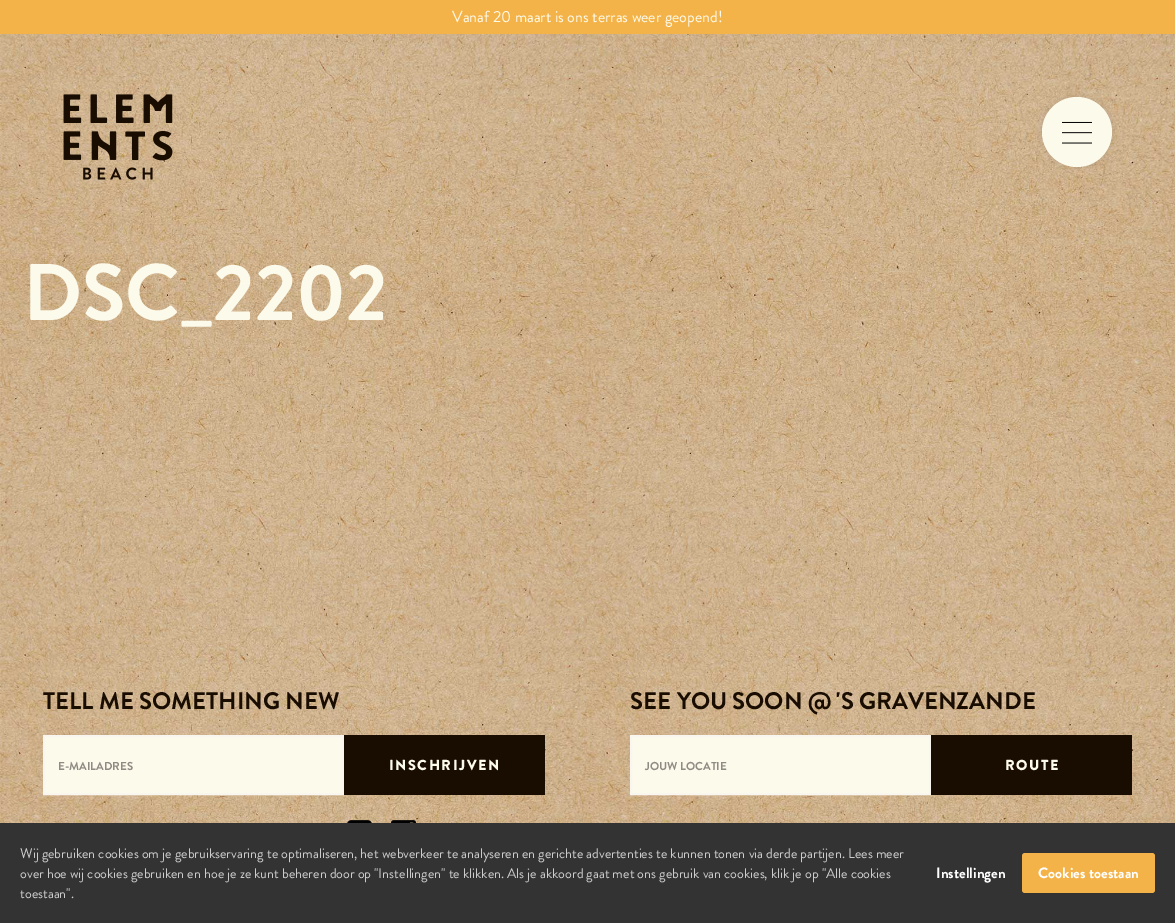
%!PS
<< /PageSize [1175 923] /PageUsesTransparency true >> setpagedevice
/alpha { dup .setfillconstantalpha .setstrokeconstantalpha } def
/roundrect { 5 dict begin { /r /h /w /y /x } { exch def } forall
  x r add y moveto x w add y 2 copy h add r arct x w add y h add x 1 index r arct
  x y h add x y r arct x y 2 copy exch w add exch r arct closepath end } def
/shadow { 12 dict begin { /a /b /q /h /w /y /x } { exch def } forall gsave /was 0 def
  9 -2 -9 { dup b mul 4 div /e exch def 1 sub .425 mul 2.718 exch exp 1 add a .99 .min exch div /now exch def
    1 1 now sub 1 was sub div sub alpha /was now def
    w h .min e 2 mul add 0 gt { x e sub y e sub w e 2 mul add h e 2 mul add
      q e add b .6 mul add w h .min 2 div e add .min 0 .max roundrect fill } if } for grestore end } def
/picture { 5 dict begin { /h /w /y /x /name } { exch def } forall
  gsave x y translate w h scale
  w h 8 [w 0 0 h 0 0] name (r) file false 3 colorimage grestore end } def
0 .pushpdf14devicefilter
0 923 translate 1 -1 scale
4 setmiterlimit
1 setgray
0 0 1175 923 rectfill
(img1.rgb) 0 34 1175 789 picture
0.957 0.702 0.286 setrgbcolor
0 0 1175 34 rectfill
/BrandonGrotesque-Regular [16 0 0 -16 0 0] selectfont
0.988 0.98 0.918 setrgbcolor
452 22 moveto (Vanaf 20 maart is ons terras weer geopend!) show
(img2.rgb) 63 94 110 86 picture
0.329 0.325 0.325 setrgbcolor
1042 97 70 70 35 3.5 0.18 shadow
0.988 0.98 0.918 setrgbcolor
newpath 1077 132 35 0 360 arc closepath fill
(img3.rgb) 1062 121 30 23 picture
/BrandonGrotesque-Bold [80 0 0 -80 0 0] selectfont
23 320 moveto (DSC_2202) show
/BrandonGrotesque-Bold [24 0 0 -24 0 0] selectfont
0.098 0.047 0 setrgbcolor
43 709 moveto (TELL ME SOMETHING NEW) show
0.988 0.98 0.918 setrgbcolor
newpath 44 736 moveto 343 736 lineto 343 794 lineto 44 794 lineto closepath gsave fill grestore
0.976 0.965 0.937 setrgbcolor
2 setlinewidth
stroke
/BrandonGrotesque-Bold [11.5 0 0 -11.5 0 0] selectfont
0.565 0.541 0.518 setrgbcolor
58 770 moveto (E-MAILADRES) show
0.098 0.047 0 setrgbcolor
344 735 201 60 rectfill
/BrandonGrotesque-Black [14.5 0 0 -14.5 0 0] selectfont
0.988 0.98 0.918 setrgbcolor
389 770 moveto 1.5 0 (INSCHRIJVEN) ashow
(img4.rgb) 347 820 25 3 picture
(img5.rgb) 391 820 25 3 picture
/BrandonGrotesque-Bold [24 0 0 -24 0 0] selectfont
0.098 0.047 0 setrgbcolor
630 709 moveto (SEE YOU SOON @ 'S GRAVENZANDE) show
0.988 0.98 0.918 setrgbcolor
newpath 631 736 moveto 930 736 lineto 930 794 lineto 631 794 lineto closepath gsave fill grestore
0.976 0.965 0.937 setrgbcolor
stroke
/BrandonGrotesque-Bold [11.5 0 0 -11.5 0 0] selectfont
0.565 0.541 0.518 setrgbcolor
645 770 moveto (JOUW LOCATIE) show
0.098 0.047 0 setrgbcolor
931 735 201 60 rectfill
/BrandonGrotesque-Black [14.5 0 0 -14.5 0 0] selectfont
0.988 0.98 0.918 setrgbcolor
1005 770 moveto 1.5 0 (ROUTE) ashow
0.2 setgray
0 823 1175 100 rectfill
/BrandonGrotesque-Regular [14 0 0 -14 0 0] selectfont
0.8 setgray
20 858 moveto (Wij gebruiken cookies om je gebruikservaring te optimaliseren, het webverkeer te analyseren en gerichte advertenties te kunnen tonen via derde partijen. Lees meer) show
20 878 moveto (over hoe wij cookies gebruiken en hoe je ze kunt beheren door op "Instellingen" te klikken. Als je akkoord gaat met ons gebruik van cookies, klik je op "Alle cookies) show
20 898 moveto (toestaan".) show
/BrandonGrotesque-Bold [15 0 0 -15 0 0] selectfont
1 setgray
936 878 moveto (Instellingen) show
0.957 0.702 0.286 setrgbcolor
1022 853 133 40 3 roundrect fill
1 setgray
1038 878 moveto (Cookies toestaan) show
.poppdf14devicefilter showpage
